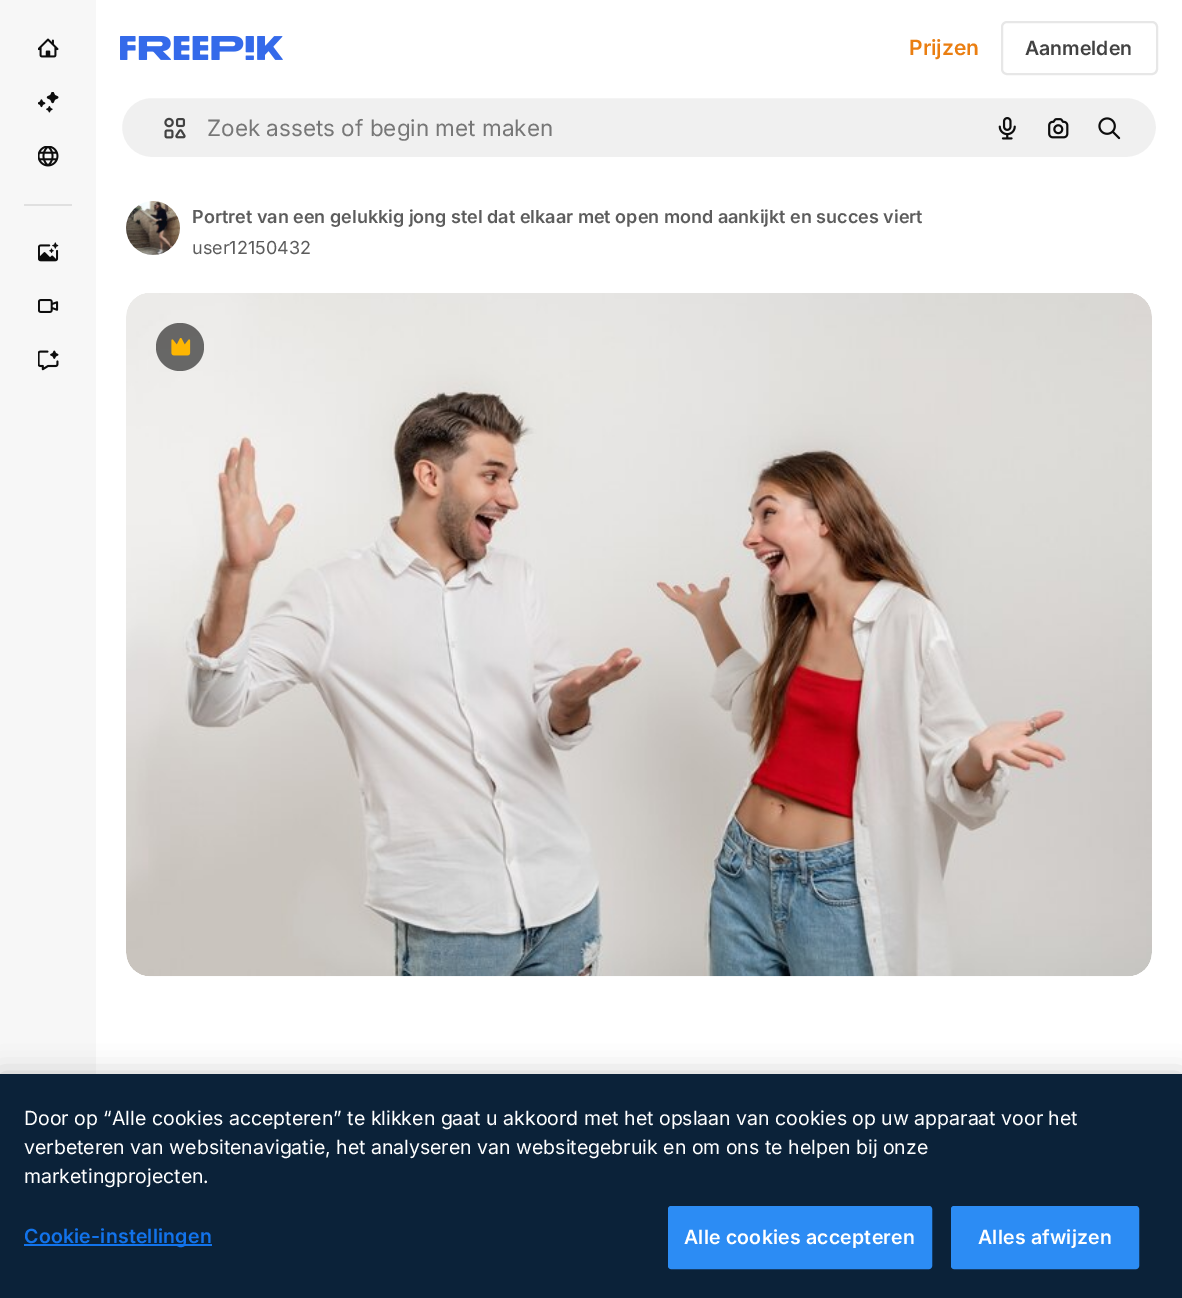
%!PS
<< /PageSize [1182 1298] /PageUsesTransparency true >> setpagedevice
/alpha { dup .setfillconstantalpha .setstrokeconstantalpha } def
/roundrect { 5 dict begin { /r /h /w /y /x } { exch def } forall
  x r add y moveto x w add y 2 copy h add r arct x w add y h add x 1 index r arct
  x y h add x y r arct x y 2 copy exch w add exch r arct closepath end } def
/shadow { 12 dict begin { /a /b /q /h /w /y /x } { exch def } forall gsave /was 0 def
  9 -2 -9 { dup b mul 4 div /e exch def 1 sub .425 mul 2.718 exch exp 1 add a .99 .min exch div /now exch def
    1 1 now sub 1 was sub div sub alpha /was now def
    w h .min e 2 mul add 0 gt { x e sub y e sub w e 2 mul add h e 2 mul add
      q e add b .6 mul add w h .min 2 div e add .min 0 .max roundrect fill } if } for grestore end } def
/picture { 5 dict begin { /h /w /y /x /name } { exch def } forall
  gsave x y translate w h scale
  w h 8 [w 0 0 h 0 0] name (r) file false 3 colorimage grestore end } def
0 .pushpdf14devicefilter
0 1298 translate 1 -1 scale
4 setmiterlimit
1 setgray
0 0 1182 1298 rectfill
0.969 setgray
0 0 96 1074 rectfill
(img1.rgb) 38 38 21 20 picture
(img2.rgb) 38 92 21 21 picture
(img3.rgb) 38 146 21 21 picture
0.878 setgray
24 204 48 2 rectfill
(img4.rgb) 38 242 21 20 picture
(img5.rgb) 38 299 21 14 picture
(img6.rgb) 38 350 21 21 picture
(img7.rgb) 120 36 163 24 picture
/Inter-SemiBold [21 0 0 -21 0 0] selectfont
0.918 0.494 0.067 setrgbcolor
909 55 moveto (Prijzen) show
0.906 setgray
2 setlinewidth
1002 22 155 52 5 roundrect stroke
/Inter-SemiBold [19.5 0 0 -19.5 0 0] selectfont
0.259 setgray
1025 55 moveto (Aanmelden) show
0.941 setgray
121 97 1036 61 30.5 roundrect gsave fill grestore
1 setgray
stroke
(img8.rgb) 164 117 22 22 picture
/Inter-Regular [22.5 0 0 -22.5 0 0] selectfont
0.467 setgray
207 136 moveto (Zoek assets of begin met maken) show
(img9.rgb) 998 117 18 23 picture
(img10.rgb) 1048 118 21 21 picture
(img11.rgb) 1098 117 23 23 picture
(img12.rgb) 126 201 54 54 picture
/Inter-SemiBold [18 0 0 -18 0 0] selectfont
0.361 setgray
192 223 moveto (Portret van een gelukkig jong stel dat elkaar met open mond aankijkt en succes viert) show
/Inter-Regular [18 0 0 -18 0 0] selectfont
192 254 moveto (user12150432) show
(img13.rgb) 126 293 1026 684 picture
0.6 alpha
0.051 setgray
newpath 180 347 24 0 360 arc closepath fill
1 alpha
(img14.rgb) 171 338 20 18 picture
0 setgray
0 1074 1182 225 0 13.5 0.2 shadow
0.043 0.133 0.224 setrgbcolor
0 1074 1182 224 rectfill
/Inter-Regular [19.5 0 0 -19.5 0 0] selectfont
1 setgray
24 1125 moveto (Door op “Alle cookies accepteren” te klikken gaat u akkoord met het opslaan van cookies op uw apparaat voor het) show
24 1154 moveto (verbeteren van websitenavigatie, het analyseren van websitegebruik en om ons te helpen bij onze) show
24 1183 moveto (marketingprojecten.) show
0.071 0.451 0.922 setrgbcolor
24 1244 188 2 rectfill
/Inter-SemiBold [19.5 0 0 -19.5 0 0] selectfont
24 1243 moveto 0.2 0 (Cookie-instellingen) ashow
0.173 0.549 0.957 setrgbcolor
669 1207 262 61 2 roundrect gsave fill grestore
stroke
1 setgray
684 1244 moveto 0.2 0 (Alle cookies accepteren) ashow
0.173 0.549 0.957 setrgbcolor
952 1207 186 61 2 roundrect gsave fill grestore
stroke
1 setgray
978 1244 moveto 0.2 0 (Alles afwijzen) ashow
.poppdf14devicefilter showpage
